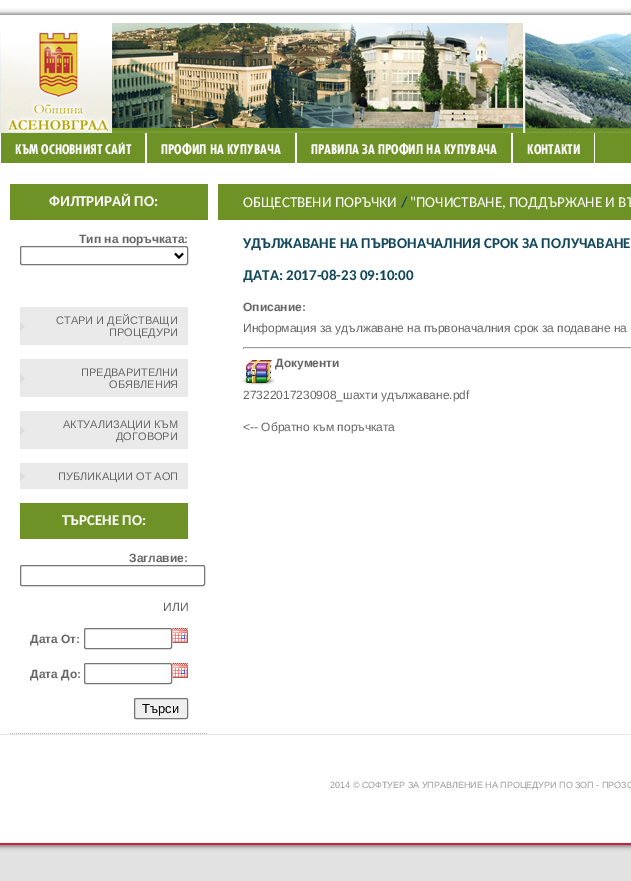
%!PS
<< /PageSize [631 881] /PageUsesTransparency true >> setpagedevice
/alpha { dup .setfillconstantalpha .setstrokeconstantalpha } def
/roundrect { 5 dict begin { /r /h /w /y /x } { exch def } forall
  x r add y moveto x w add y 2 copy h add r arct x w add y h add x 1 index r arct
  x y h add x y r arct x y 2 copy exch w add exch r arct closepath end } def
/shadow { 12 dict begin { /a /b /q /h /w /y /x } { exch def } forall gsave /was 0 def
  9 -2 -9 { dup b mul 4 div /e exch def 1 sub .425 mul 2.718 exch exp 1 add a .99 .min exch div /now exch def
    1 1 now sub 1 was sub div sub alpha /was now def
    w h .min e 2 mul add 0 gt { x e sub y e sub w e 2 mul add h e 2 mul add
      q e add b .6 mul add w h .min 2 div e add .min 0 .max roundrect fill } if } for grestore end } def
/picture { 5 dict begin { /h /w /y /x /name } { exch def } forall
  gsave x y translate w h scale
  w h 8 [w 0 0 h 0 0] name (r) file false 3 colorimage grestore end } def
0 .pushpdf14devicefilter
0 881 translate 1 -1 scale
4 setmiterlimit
0.886 setgray
0 0 631 881 rectfill
(img1.rgb) 0 0 631 15 picture
0.4 0.396 0.4 setrgbcolor
-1 14 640 832 0 2.5 1 shadow
1 setgray
0 15 631 828 rectfill
0.796 0.125 0.227 setrgbcolor
0 843 631 2 rectfill
(img2.rgb) 0 23 631 110 picture
0.431 0.573 0.149 setrgbcolor
1 133 630 30 rectfill
1 setgray
145 133 2 30 rectfill
/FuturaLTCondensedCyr-Bold [13 0 0 -13 0 0] selectfont
15 154 moveto (КЪМ ОСНОВНИЯТ САЙТ) show
295 133 2 30 rectfill
161 154 moveto (ПРОФИЛ НА КУПУВАЧА) show
511 133 2 30 rectfill
311 154 moveto (ПРАВИЛА ЗА ПРОФИЛ НА КУПУВАЧА) show
594 133 1 30 rectfill
527 154 moveto (КОНТАКТИ) show
0.431 0.573 0.149 setrgbcolor
10 184 198 36 rectfill
0.706 setgray
[1 1] 0 setdash
newpath 10 733.5 moveto 208 733.5 lineto stroke
/Carlito-Bold [15 0 0 -15 0 0] selectfont
1 setgray
49 206 moveto (ФИЛТРИРАЙ ПО:) show
/LiberationSans-Bold [12 0 0 -12 0 0] selectfont
0.4 setgray
79 243 moveto (Тип на поръчката:) show
0.463 setgray
[] 0 setdash
20.5 246.5 167 18 1.5 roundrect stroke
0 setgray
2 setlinewidth
newpath 175 253.5 moveto 179 257.5 lineto 183 253.5 lineto stroke
0.918 setgray
20 307 168 38 rectfill
(img3.rgb) 20 322 5 9 picture
/LiberationSans-Regular [11 0 0 -11 0 0] selectfont
0.4 setgray
56 324 moveto (СТАРИ И ДЕЙСТВАЩИ) show
109 336 moveto (ПРОЦЕДУРИ) show
0.918 setgray
20 359 168 38 rectfill
(img3.rgb) 20 374 5 9 picture
0.4 setgray
81 376 moveto (ПРЕДВАРИТЕЛНИ) show
109 388 moveto (ОБЯВЛЕНИЯ) show
0.918 setgray
20 411 168 38 rectfill
(img3.rgb) 20 426 5 9 picture
0.4 setgray
63 428 moveto (АКТУАЛИЗАЦИИ КЪМ) show
116 440 moveto (ДОГОВОРИ) show
0.918 setgray
20 463 168 26 rectfill
(img3.rgb) 20 472 5 9 picture
0.4 setgray
58 480 moveto (ПУБЛИКАЦИИ ОТ АОП) show
0.431 0.573 0.149 setrgbcolor
20 503 168 36 rectfill
/Carlito-Bold [15 0 0 -15 0 0] selectfont
1 setgray
62 525 moveto (ТЪРСЕНЕ ПО:) show
/LiberationSans-Bold [12 0 0 -12 0 0] selectfont
0.4 setgray
129 562 moveto (Заглавие:) show
0.463 setgray
1 setlinewidth
20.5 565.5 184 20 1.5 roundrect stroke
/LiberationSans-Regular [12 0 0 -12 0 0] selectfont
0.4 setgray
163 611 moveto (ИЛИ) show
/LiberationSans-Bold [12 0 0 -12 0 0] selectfont
30 643 moveto (Дата От:) show
0.463 setgray
84.5 628.5 87 20 1.5 roundrect stroke
(img4.rgb) 172 628 16 15 picture
0.4 setgray
30 678 moveto (Дата До:) show
0.463 setgray
84.5 663.5 87 20 1.5 roundrect stroke
(img4.rgb) 172 663 16 15 picture
0.937 setgray
134.5 698.5 53 20 1.5 roundrect gsave fill grestore
0.463 setgray
stroke
/LiberationSans-Regular [13 0 0 -13 0 0] selectfont
0 setgray
142 713 moveto (Търси) show
0.431 0.573 0.149 setrgbcolor
218 184 413 36 rectfill
/Carlito-Regular [15 0 0 -15 0 0] selectfont
1 setgray
243 207 moveto (ОБЩЕСТВЕНИ ПОРЪЧКИ) show
/Carlito-Bold [15 0 0 -15 0 0] selectfont
0.067 0.282 0.357 setrgbcolor
401 207 moveto (/) show
/Carlito-Regular [15 0 0 -15 0 0] selectfont
1 setgray
410 207 moveto ("ПОЧИСТВАНЕ, ПОДДЪРЖАНЕ И ВЪ) show
/Carlito-Bold [15 0 0 -15 0 0] selectfont
0.067 0.282 0.357 setrgbcolor
243 248 moveto (УДЪЛЖАВАНЕ НА ПЪРВОНАЧАЛНИЯ СРОК ЗА ПОЛУЧАВАНЕ) show
243 280 moveto (ДАТА: 2017-08-23 09:10:00) show
/LiberationSans-Bold [12 0 0 -12 0 0] selectfont
0.4 setgray
243 311 moveto (Описание:) show
/LiberationSans-Regular [12 0 0 -12 0 0] selectfont
243 332 moveto (Информация за удължаване на първоначалния срок за подаване на) show
0.624 setgray
243 347 388 1 rectfill
0.933 setgray
243 348 388 1 rectfill
0.624 setgray
243 347 1 2 rectfill
(img5.rgb) 243 360 32 25 picture
/LiberationSans-Bold [12 0 0 -12 0 0] selectfont
0.4 setgray
275 367 moveto (Документи) show
/LiberationSans-Regular [12 0 0 -12 0 0] selectfont
243 399 moveto (27322017230908_шахти удължаване.pdf) show
243 431 moveto (<-- Обратно към поръчката) show
0.902 setgray
0 734 631 1 rectfill
/LiberationSans-Regular [9 0 0 -9 0 0] selectfont
0.6 setgray
330 788 moveto (2014 © СОФТУЕР ЗА УПРАВЛЕНИЕ НА ПРОЦЕДУРИ ПО ЗОП - ПРОЗО) show
.poppdf14devicefilter showpage
